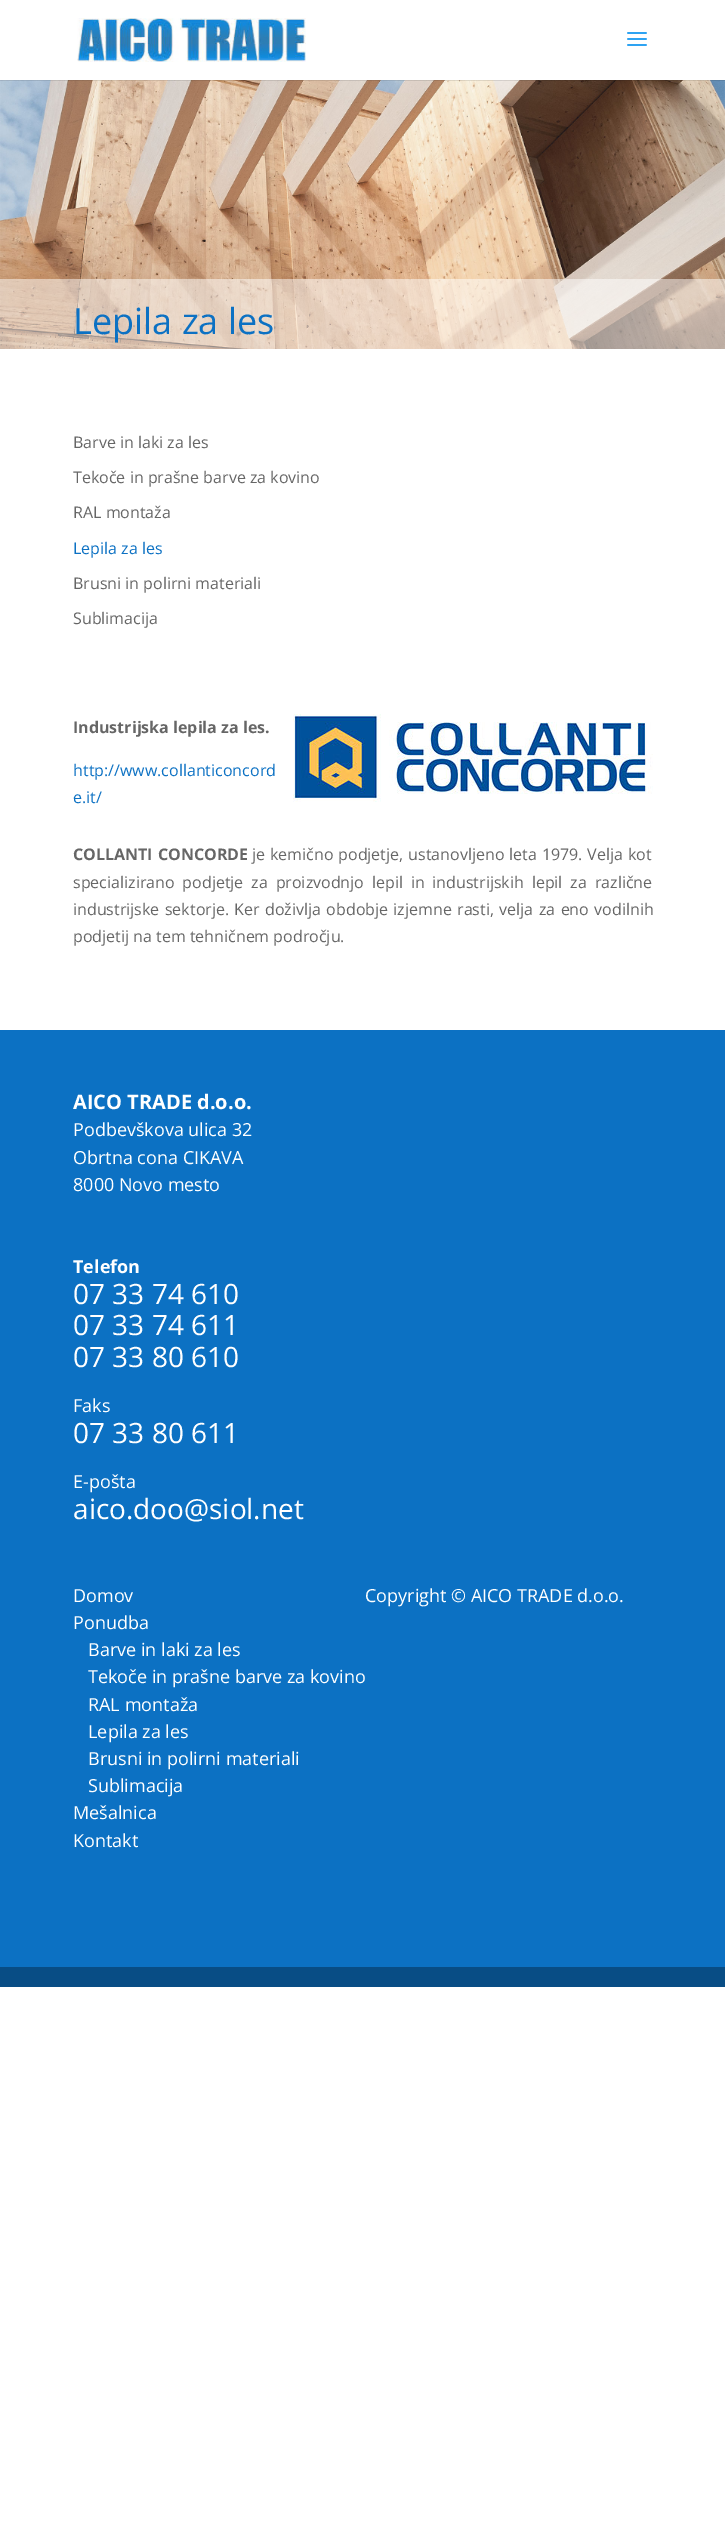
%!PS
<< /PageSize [725 2536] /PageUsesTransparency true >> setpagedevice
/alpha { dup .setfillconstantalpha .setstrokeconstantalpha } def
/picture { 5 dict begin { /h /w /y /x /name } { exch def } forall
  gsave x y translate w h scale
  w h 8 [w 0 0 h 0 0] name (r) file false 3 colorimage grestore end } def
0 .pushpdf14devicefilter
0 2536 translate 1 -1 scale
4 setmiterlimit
1 setgray
0 0 725 2536 rectfill
(img3.rgb) 0 80 725 269 picture
0.1 alpha
0 setgray
0 80 725 1 rectfill
1 alpha
(img1.rgb) 77 18 229 44 picture
(img2.rgb) 627 32 20 14 picture
0.5 alpha
1 setgray
0 279 725 70 rectfill
/OpenSans-Regular [36 0 0 -36 0 0] selectfont
1 alpha
0.047 0.443 0.765 setrgbcolor
73 334 moveto (Lepila za les) show
/OpenSans-Regular [16 0 0 -16 0 0] selectfont
0.4 setgray
73 448 moveto (Barve in laki za les) show
73 483 moveto (Tekoče in prašne barve za kovino) show
73 518 moveto (RAL montaža) show
0.047 0.443 0.765 setrgbcolor
73 554 moveto (Lepila za les) show
0.4 setgray
73 589 moveto (Brusni in polirni materiali) show
73 624 moveto (Sublimacija) show
/OpenSans-Bold [16 0 0 -16 0 0] selectfont
73 733 moveto (Industrijska lepila za les.) show
(img4.rgb) 293 714 360 88 picture
/OpenSans-Regular [16 0 0 -16 0 0] selectfont
0.047 0.443 0.765 setrgbcolor
73 776 moveto (http://www.collanticoncord) show
73 803 moveto (e.it/) show
/OpenSans-Bold [16 0 0 -16 0 0] selectfont
0.4 setgray
73 860 moveto 1 0 32 (COLLANTI CONCORDE) widthshow
/OpenSans-Regular [16 0 0 -16 0 0] selectfont
252 860 moveto 0.75 0 32 (je kemično podjetje, ustanovljeno leta 1979. Velja kot) widthshow
73 888 moveto 3.75 0 32 (specializirano podjetje za proizvodnjo lepil in industrijskih lepil za različne) widthshow
73 915 moveto 1.25 0 32 (industrijske sektorje. Ker doživlja obdobje izjemne rasti, velja za eno vodilnih) widthshow
73 942 moveto (podjetij na tem tehničnem področju.) show
0.047 0.443 0.765 setrgbcolor
0 1030 725 937 rectfill
/OpenSans-Bold [20 0 0 -20 0 0] selectfont
1 setgray
73 1109 moveto (AICO TRADE d.o.o.) show
/OpenSans-Regular [18 0 0 -18 0 0] selectfont
73 1136 moveto (Podbevškova ulica 32) show
73 1164 moveto (Obrtna cona CIKAVA) show
73 1191 moveto (8000 Novo mesto) show
/OpenSans-Bold [18 0 0 -18 0 0] selectfont
73 1273 moveto (Telefon) show
/OpenSans-Regular [28 0 0 -28 0 0] selectfont
73 1304 moveto (07 33 74 610) show
73 1335 moveto (07 33 74 611) show
73 1367 moveto (07 33 80 610) show
/OpenSans-Regular [18 0 0 -18 0 0] selectfont
73 1412 moveto (Faks) show
/OpenSans-Regular [28 0 0 -28 0 0] selectfont
73 1443 moveto (07 33 80 611) show
/OpenSans-Regular [18 0 0 -18 0 0] selectfont
73 1488 moveto (E-pošta) show
/OpenSans-Regular [28 0 0 -28 0 0] selectfont
73 1519 moveto (aico.doo@siol.net) show
/OpenSans-Regular [18 0 0 -18 0 0] selectfont
73 1602 moveto (Domov) show
73 1629 moveto (Ponudba) show
88 1656 moveto (Barve in laki za les) show
88 1683 moveto (Tekoče in prašne barve za kovino) show
88 1711 moveto (RAL montaža) show
88 1738 moveto (Lepila za les) show
88 1765 moveto (Brusni in polirni materiali) show
88 1792 moveto (Sublimacija) show
73 1819 moveto (Mešalnica) show
73 1847 moveto (Kontakt) show
365 1602 moveto (Copyright © AICO TRADE d.o.o.) show
0.031 0.302 0.522 setrgbcolor
0 1967 725 20 rectfill
.poppdf14devicefilter showpage
